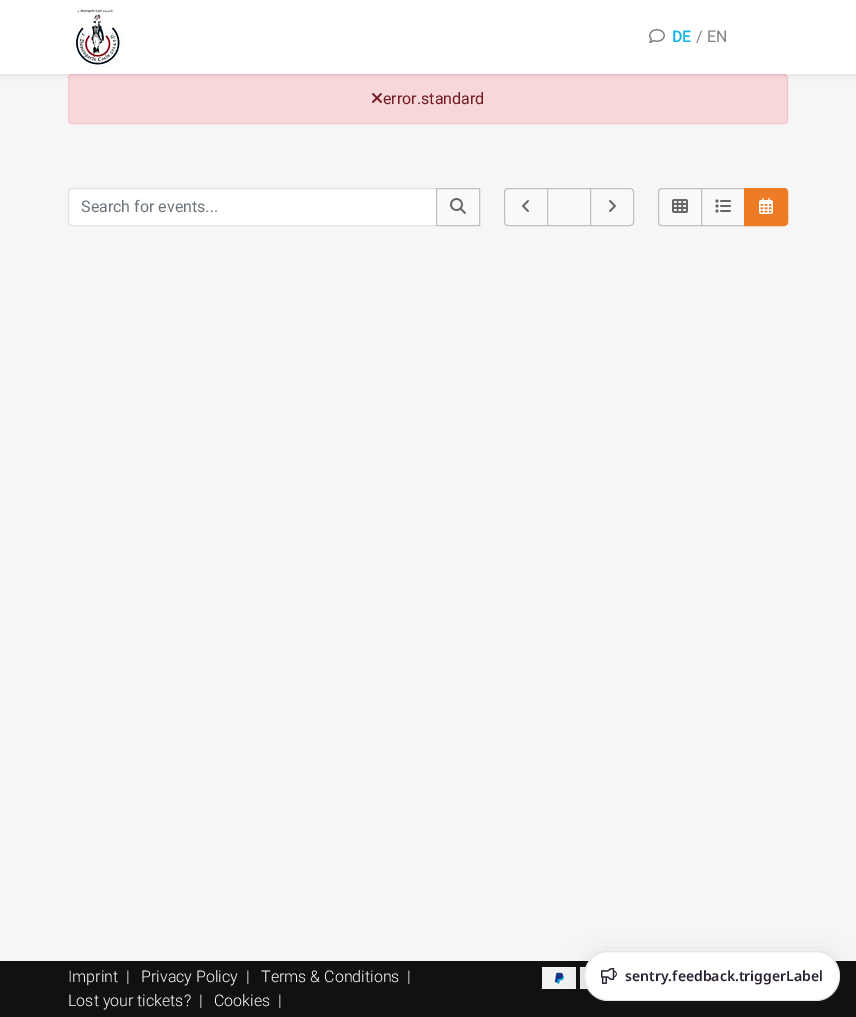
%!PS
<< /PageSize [856 1017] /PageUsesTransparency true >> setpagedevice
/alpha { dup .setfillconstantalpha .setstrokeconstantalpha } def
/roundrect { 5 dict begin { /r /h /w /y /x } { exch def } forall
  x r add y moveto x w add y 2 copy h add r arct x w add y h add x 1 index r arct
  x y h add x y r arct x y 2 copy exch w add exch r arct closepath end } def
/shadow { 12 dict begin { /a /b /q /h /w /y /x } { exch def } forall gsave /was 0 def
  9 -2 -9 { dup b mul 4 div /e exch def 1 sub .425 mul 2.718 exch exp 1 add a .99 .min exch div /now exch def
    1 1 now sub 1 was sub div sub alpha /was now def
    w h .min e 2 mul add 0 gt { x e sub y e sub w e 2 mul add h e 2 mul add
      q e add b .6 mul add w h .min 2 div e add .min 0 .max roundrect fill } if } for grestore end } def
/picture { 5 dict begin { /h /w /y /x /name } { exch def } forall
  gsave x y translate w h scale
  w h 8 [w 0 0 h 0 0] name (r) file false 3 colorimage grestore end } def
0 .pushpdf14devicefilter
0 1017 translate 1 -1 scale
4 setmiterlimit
0.965 setgray
0 0 856 1017 rectfill
0.973 0.843 0.855 setrgbcolor
68.5 74.5 719 49 3.5 roundrect gsave fill grestore
0.961 0.776 0.796 setrgbcolor
stroke
0 setgray
0 2 856 74 0 2 0.07 shadow
1 setgray
0 0 856 74 rectfill
(img1.rgb) 68 7 57 60 picture
(img2.rgb) 649 29 16 14 picture
/Roboto-Medium [16 0 0 -16 0 0] selectfont
0.059 0.714 0.902 setrgbcolor
672 42 moveto (DE) show
/Roboto-Regular [16 0 0 -16 0 0] selectfont
0.502 setgray
696 42 moveto (/ EN) show
(img3.rgb) 372 93 10 10 picture
0.447 0.11 0.141 setrgbcolor
383 104 moveto (error.standard) show
1 setgray
newpath 72 188.5 moveto 436.5 188.5 lineto 436.5 225.5 lineto 72 225.5 lineto 70 225.5 68.5 224 68.5 222 curveto 68.5 192 lineto 68.5 190 70 188.5 72 188.5 curveto closepath gsave fill grestore
0.886 setgray
stroke
0.424 0.459 0.49 setrgbcolor
81 212 moveto (Search for events...) show
0.976 setgray
newpath 436.5 188.5 moveto 479.5 188.5 lineto 479.5 225.5 lineto 436.5 225.5 lineto closepath gsave fill grestore
0.757 setgray
stroke
(img4.rgb) 450 198 16 16 picture
0.976 setgray
newpath 508 188.5 moveto 547.5 188.5 lineto 547.5 225.5 lineto 508 225.5 lineto 506 225.5 504.5 224 504.5 222 curveto 504.5 192 lineto 504.5 190 506 188.5 508 188.5 curveto closepath gsave fill grestore
0.757 setgray
stroke
(img5.rgb) 522 200 7 12 picture
0.976 setgray
newpath 547.5 188.5 moveto 590.5 188.5 lineto 590.5 225.5 lineto 547.5 225.5 lineto closepath gsave fill grestore
0.757 setgray
stroke
0.976 setgray
newpath 590.5 188.5 moveto 630 188.5 lineto 632 188.5 633.5 190 633.5 192 curveto 633.5 222 lineto 633.5 224 632 225.5 630 225.5 curveto 590.5 225.5 lineto closepath gsave fill grestore
0.757 setgray
stroke
(img6.rgb) 609 200 7 12 picture
0.976 setgray
newpath 662 188.5 moveto 701.5 188.5 lineto 701.5 225.5 lineto 662 225.5 lineto 660 225.5 658.5 224 658.5 222 curveto 658.5 192 lineto 658.5 190 660 188.5 662 188.5 curveto closepath gsave fill grestore
0.757 setgray
stroke
(img7.rgb) 672 199 16 14 picture
0.976 setgray
newpath 701.5 188.5 moveto 744.5 188.5 lineto 744.5 225.5 lineto 701.5 225.5 lineto closepath gsave fill grestore
0.757 setgray
stroke
(img8.rgb) 715 199 16 14 picture
0.933 0.486 0.149 setrgbcolor
newpath 744.5 188.5 moveto 784 188.5 lineto 786 188.5 787.5 190 787.5 192 curveto 787.5 222 lineto 787.5 224 786 225.5 784 225.5 curveto 744.5 225.5 lineto closepath gsave fill grestore
stroke
(img9.rgb) 759 198 14 16 picture
0.067 setgray
0 961 856 56 rectfill
/Roboto-Light [16 0 0 -16 0 0] selectfont
1 setgray
68 982 moveto (Imprint) show
126 982 moveto (|) show
141 982 moveto (Privacy Policy) show
246 982 moveto (|) show
261 982 moveto (Terms & Conditions) show
407 982 moveto (|) show
68 1006 moveto (Lost your tickets?) show
199 1006 moveto (|) show
214 1006 moveto (Cookies) show
278 1006 moveto (|) show
(img10.rgb) 542 967 34 22 picture
(img11.rgb) 580 967 8 22 picture
0.169 0.133 0.2 setrgbcolor
584 955 256 50 24 12 0.12 shadow
1 setgray
newpath 608 951 moveto 816 951 lineto 829 951 840 962 840 976 curveto 840 990 829 1001 816 1001 curveto 608 1001 lineto 595 1001 584 990 584 976 curveto 584 962 595 951 608 951 curveto closepath fill
0.13 alpha
0.161 0.137 0.184 setrgbcolor
newpath 608 951.5 moveto 816 951.5 lineto 829 951.5 839.5 962.5 839.5 976 curveto 839.5 989.5 829 1000.5 816 1000.5 curveto 608 1000.5 lineto 595 1000.5 584.5 989.5 584.5 976 curveto 584.5 962.5 595 951.5 608 951.5 curveto closepath stroke
1 alpha
(img12.rgb) 601 968 16 16 picture
/NotoSans-SemiBold [14 0 0 -14 0 0] selectfont
0.169 0.133 0.2 setrgbcolor
625 981 moveto (sentry.feedback.triggerLabel) show
.poppdf14devicefilter showpage
